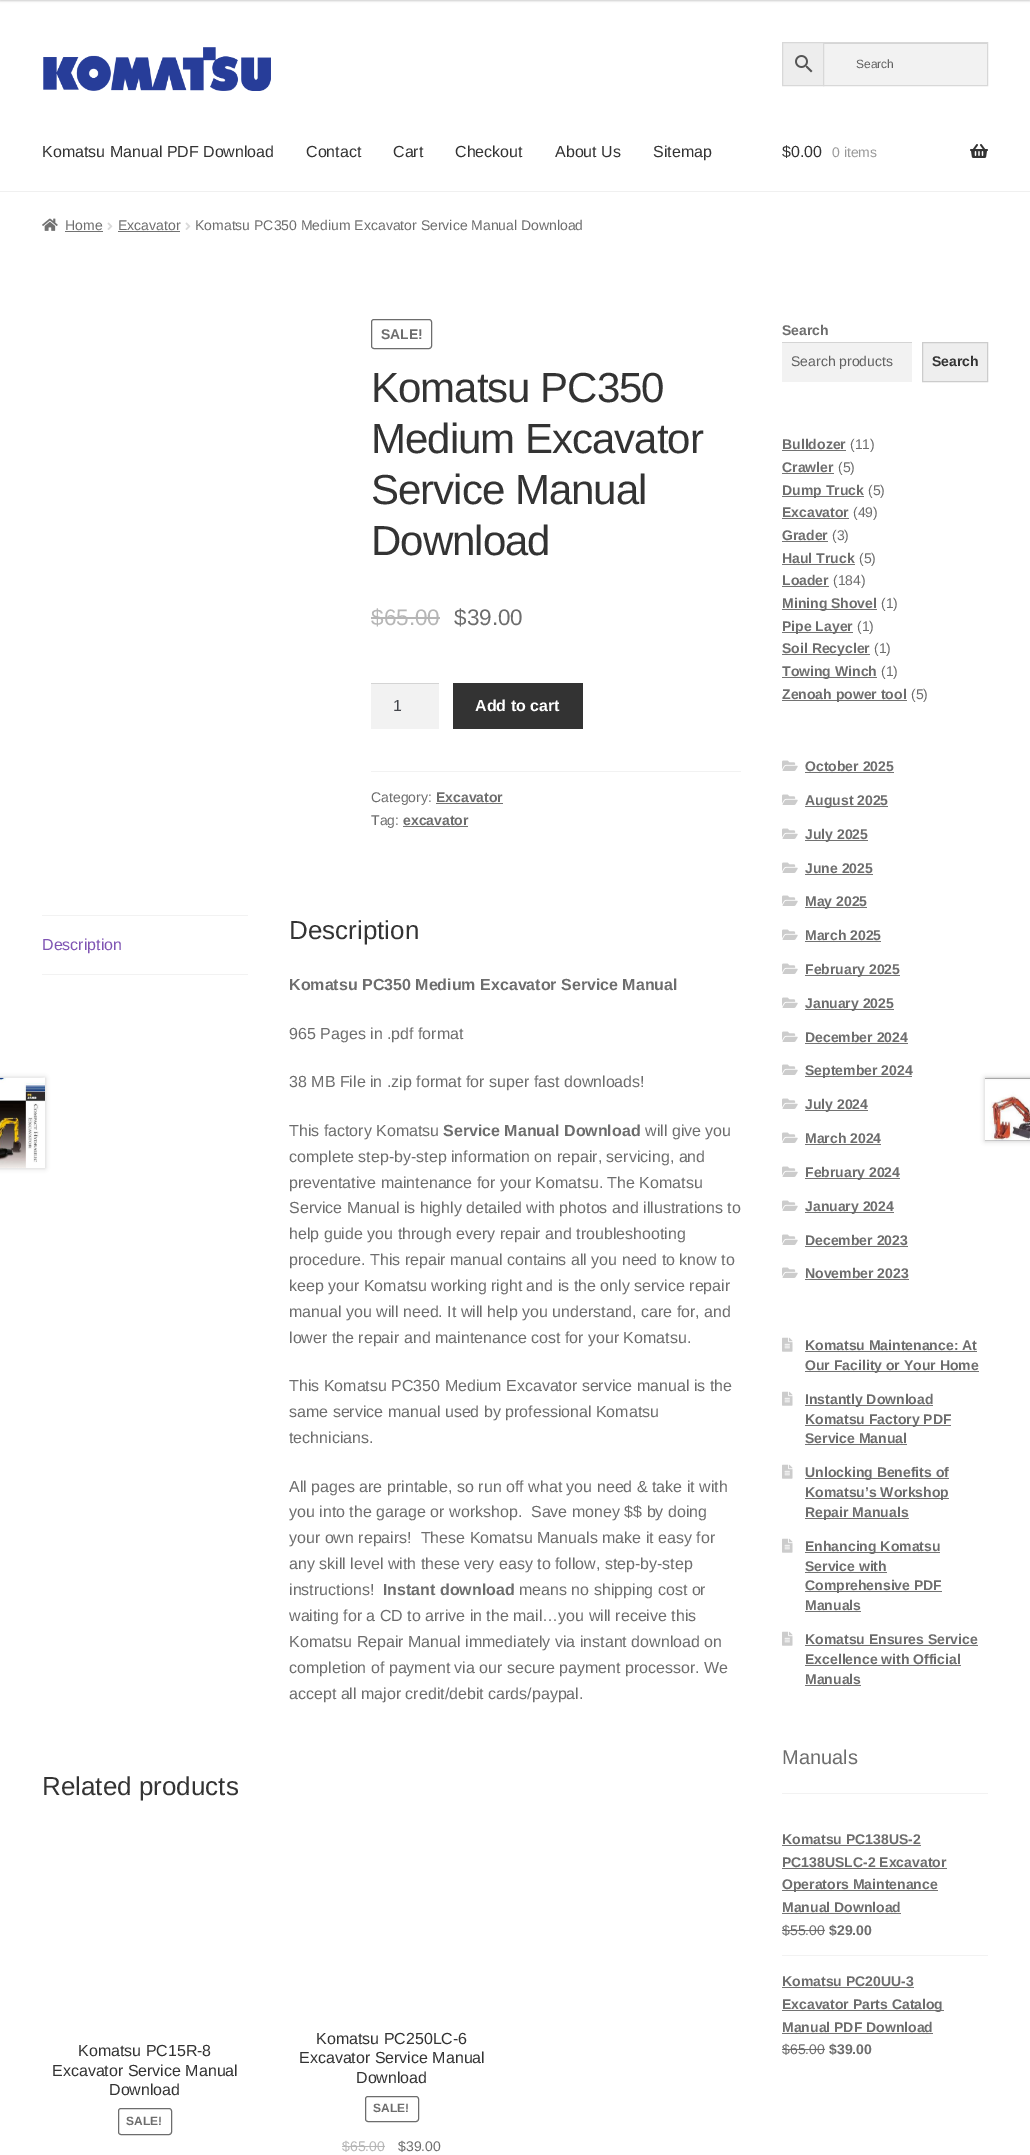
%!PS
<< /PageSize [1030 2155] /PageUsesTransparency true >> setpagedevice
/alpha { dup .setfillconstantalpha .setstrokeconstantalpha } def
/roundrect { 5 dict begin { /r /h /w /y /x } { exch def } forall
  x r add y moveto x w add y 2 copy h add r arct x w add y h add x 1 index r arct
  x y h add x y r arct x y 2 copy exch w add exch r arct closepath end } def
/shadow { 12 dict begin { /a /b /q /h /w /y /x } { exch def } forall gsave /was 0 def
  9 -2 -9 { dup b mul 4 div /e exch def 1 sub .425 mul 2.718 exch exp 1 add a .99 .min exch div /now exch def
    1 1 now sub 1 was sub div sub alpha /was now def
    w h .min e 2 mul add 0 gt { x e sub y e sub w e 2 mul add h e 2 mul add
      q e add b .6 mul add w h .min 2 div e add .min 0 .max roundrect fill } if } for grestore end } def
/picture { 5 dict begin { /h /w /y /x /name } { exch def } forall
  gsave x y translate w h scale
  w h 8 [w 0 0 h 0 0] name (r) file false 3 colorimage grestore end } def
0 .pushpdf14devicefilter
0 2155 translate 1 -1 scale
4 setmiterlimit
1 setgray
0 0 1030 2155 rectfill
0 setgray
0 -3 1030 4 0 1 0.2 shadow
0.941 setgray
0 191 1030 1 rectfill
(img1.rgb) 43 47 228 44 picture
0.929 setgray
newpath 782.5 42.5 moveto 823.5 42.5 lineto 823.5 85.5 lineto 782.5 85.5 lineto closepath gsave fill grestore
0.847 setgray
stroke
(img2.rgb) 795 55 18 18 picture
0.949 setgray
824 44 163 41 rectfill
0.831 setgray
824 43 163 1 rectfill
0.847 setgray
823.5 42.5 164 43 rectstroke
/LiberationSans-Regular [12 0 0 -12 0 0] selectfont
0.38 setgray
856 68 moveto (Search) show
/LiberationSans-Regular [16 0 0 -16 0 0] selectfont
0.2 setgray
42 157 moveto (Komatsu Manual PDF Download) show
306 157 moveto (Contact) show
393 157 moveto (Cart) show
455 157 moveto (Checkout) show
555 157 moveto (About Us) show
653 157 moveto (Sitemap) show
782 157 moveto ($0.00) show
/LiberationSans-Regular [14 0 0 -14 0 0] selectfont
0.6 setgray
832 157 moveto (0 items) show
(img3.rgb) 970 144 18 14 picture
(img4.rgb) 42 218 16 13 picture
0.427 setgray
65 230 moveto (Home) show
0.447 setgray
65 231 38 1 rectfill
(img5.rgb) 107 222 6 8 picture
0.427 setgray
118 230 moveto (Excavator) show
0.447 setgray
118 231 62 1 rectfill
(img5.rgb) 185 222 6 8 picture
0.427 setgray
195 230 moveto (Komatsu PC350 Medium Excavator Service Manual Download) show
371.5 319.5 60 29 2.5 roundrect stroke
/LiberationSans-Bold [14 0 0 -14 0 0] selectfont
381 339 moveto (SALE!) show
/LiberationSans-Regular [42 0 0 -42 0 0] selectfont
0.2 setgray
371 402 moveto -1 0 (Komatsu PC350) ashow
371 453 moveto -1 0 (Medium Excavator) ashow
371 504 moveto -1 0 (Service Manual) ashow
371 555 moveto -1 0 (Download) ashow
/LiberationSans-Regular [22.5 0 0 -22.5 0 0] selectfont
0.714 setgray
371 625 moveto ($65.00) show
371 617 69 2 rectfill
0.427 setgray
454 625 moveto ($39.00) show
0.949 setgray
371 684 68 45 rectfill
0.831 setgray
371 683 68 1 rectfill
/LiberationSans-Regular [16 0 0 -16 0 0] selectfont
0.263 0.271 0.294 setrgbcolor
393 711 moveto (1) show
0.2 setgray
453 683 130 46 rectfill
/LiberationSans-Bold [16 0 0 -16 0 0] selectfont
1 setgray
475 711 moveto (Add to cart) show
0.949 setgray
371 771 370 1 rectfill
/LiberationSans-Regular [14 0 0 -14 0 0] selectfont
0.427 setgray
371 802 moveto (Category:) show
/LiberationSans-Bold [14 0 0 -14 0 0] selectfont
436 802 moveto (Excavator) show
0.447 setgray
436 803 67 1 rectfill
/LiberationSans-Regular [14 0 0 -14 0 0] selectfont
0.427 setgray
371 825 moveto (Tag:) show
/LiberationSans-Bold [14 0 0 -14 0 0] selectfont
403 825 moveto (excavator) show
0.447 setgray
403 826 65 1 rectfill
0.949 setgray
42 915 206 1 rectfill
42 974 206 1 rectfill
/LiberationSans-Regular [16 0 0 -16 0 0] selectfont
0.498 0.329 0.702 setrgbcolor
42 950 moveto (Description) show
/LiberationSans-Regular [26 0 0 -26 0 0] selectfont
0.2 setgray
289 939 moveto (Description) show
/LiberationSans-Bold [16 0 0 -16 0 0] selectfont
0.427 setgray
289 990 moveto (Komatsu PC350 Medium Excavator Service Manual) show
/LiberationSans-Regular [16 0 0 -16 0 0] selectfont
289 1039 moveto (965 Pages in .pdf format) show
289 1087 moveto (38 MB File in .zip format for super fast downloads!) show
289 1136 moveto (This factory Komatsu) show
/LiberationSans-Bold [16 0 0 -16 0 0] selectfont
443 1136 moveto (Service Manual Download) show
/LiberationSans-Regular [16 0 0 -16 0 0] selectfont
645 1136 moveto (will give you) show
289 1162 moveto (complete step-by-step information on repair, servicing, and) show
289 1188 moveto (preventative maintenance for your Komatsu. The Komatsu) show
289 1213 moveto (Service Manual is highly detailed with photos and illustrations to) show
289 1239 moveto (help guide you through every repair and troubleshooting) show
289 1265 moveto (procedure. This repair manual contains all you need to know to) show
289 1291 moveto (keep your Komatsu working right and is the only service repair) show
289 1317 moveto (manual you will need. It will help you understand, care for, and) show
289 1343 moveto (lower the repair and maintenance cost for your Komatsu.) show
289 1391 moveto (This Komatsu PC350 Medium Excavator service manual is the) show
289 1417 moveto (same service manual used by professional Komatsu) show
289 1443 moveto (technicians.) show
289 1492 moveto (All pages are printable, so run off what you need & take it with) show
289 1517 moveto (you into the garage or workshop.  Save money $$ by doing) show
289 1543 moveto (your own repairs!  These Komatsu Manuals make it easy for) show
289 1569 moveto (any skill level with these very easy to follow, step-by-step) show
289 1595 moveto (instructions!) show
/LiberationSans-Bold [16 0 0 -16 0 0] selectfont
383 1595 moveto (Instant download) show
/LiberationSans-Regular [16 0 0 -16 0 0] selectfont
519 1595 moveto (means no shipping cost or) show
289 1621 moveto (waiting for a CD to arrive in the mail…you will receive this) show
289 1647 moveto (Komatsu Repair Manual immediately via instant download on) show
289 1673 moveto (completion of payment via our secure payment processor. We) show
289 1699 moveto (accept all major credit/debit cards/paypal.) show
0 setgray
-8 1078 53 90 0 2.5 0.2 shadow
(img6.rgb) 0 1077 45 91 picture
985 1078 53 63 0 2.5 0.2 shadow
(img7.rgb) 985 1077 45 64 picture
/LiberationSans-Regular [26 0 0 -26 0 0] selectfont
0.2 setgray
42 1795 moveto (Related products) show
/LiberationSans-Regular [16 0 0 -16 0 0] selectfont
78 2056 moveto (Komatsu PC15R-8) show
52 2076 moveto (Excavator Service Manual) show
109 2095 moveto (Download) show
0.427 setgray
118.5 2108.5 53 26 2.5 roundrect stroke
/LiberationSans-Bold [12 0 0 -12 0 0] selectfont
126 2125 moveto (SALE!) show
/LiberationSans-Regular [16 0 0 -16 0 0] selectfont
0.2 setgray
316 2044 moveto (Komatsu PC250LC-6) show
299 2063 moveto (Excavator Service Manual) show
356 2083 moveto (Download) show
0.427 setgray
365.5 2096.5 53 25 2.5 roundrect stroke
/LiberationSans-Bold [12 0 0 -12 0 0] selectfont
373 2112 moveto (SALE!) show
/LiberationSans-Regular [14 0 0 -14 0 0] selectfont
0.714 setgray
342 2151 moveto ($65.00) show
342 2146 43 1 rectfill
0.427 setgray
398 2151 moveto ($39.00) show
/LiberationSans-Bold [14 0 0 -14 0 0] selectfont
782 335 moveto (Search) show
0.949 setgray
782 343 130 39 rectfill
0.831 setgray
782 342 130 1 rectfill
/LiberationSans-Regular [14 0 0 -14 0 0] selectfont
0.38 setgray
791 366 moveto (Search products) show
0.933 setgray
newpath 922.5 342.5 moveto 987.5 342.5 lineto 987.5 381.5 lineto 922.5 381.5 lineto closepath gsave fill grestore
0.8 setgray
stroke
/LiberationSans-Bold [14 0 0 -14 0 0] selectfont
0.2 setgray
932 366 moveto (Search) show
0.427 setgray
782 449 moveto (Bulldozer) show
0.447 setgray
782 450 64 1 rectfill
/LiberationSans-Regular [14 0 0 -14 0 0] selectfont
0.427 setgray
850 449 moveto (\(11\)) show
/LiberationSans-Bold [14 0 0 -14 0 0] selectfont
782 472 moveto (Crawler) show
0.447 setgray
782 473 52 1 rectfill
/LiberationSans-Regular [14 0 0 -14 0 0] selectfont
0.427 setgray
838 472 moveto (\(5\)) show
0.447 setgray
782 496 82 1 rectfill
/LiberationSans-Bold [14 0 0 -14 0 0] selectfont
0.427 setgray
782 495 moveto (Dump Truck) show
/LiberationSans-Regular [14 0 0 -14 0 0] selectfont
868 495 moveto (\(5\)) show
/LiberationSans-Bold [14 0 0 -14 0 0] selectfont
782 517 moveto (Excavator) show
0.447 setgray
782 518 67 1 rectfill
/LiberationSans-Regular [14 0 0 -14 0 0] selectfont
0.427 setgray
853 517 moveto (\(49\)) show
/LiberationSans-Bold [14 0 0 -14 0 0] selectfont
782 540 moveto (Grader) show
0.447 setgray
782 541 46 1 rectfill
/LiberationSans-Regular [14 0 0 -14 0 0] selectfont
0.427 setgray
832 540 moveto (\(3\)) show
/LiberationSans-Bold [14 0 0 -14 0 0] selectfont
782 563 moveto (Haul Truck) show
0.447 setgray
782 564 73 1 rectfill
/LiberationSans-Regular [14 0 0 -14 0 0] selectfont
0.427 setgray
859 563 moveto (\(5\)) show
/LiberationSans-Bold [14 0 0 -14 0 0] selectfont
782 585 moveto (Loader) show
0.447 setgray
782 586 47 1 rectfill
/LiberationSans-Regular [14 0 0 -14 0 0] selectfont
0.427 setgray
833 585 moveto (\(184\)) show
0.447 setgray
782 609 95 1 rectfill
/LiberationSans-Bold [14 0 0 -14 0 0] selectfont
0.427 setgray
782 608 moveto (Mining Shovel) show
/LiberationSans-Regular [14 0 0 -14 0 0] selectfont
881 608 moveto (\(1\)) show
0.447 setgray
782 632 71 1 rectfill
/LiberationSans-Bold [14 0 0 -14 0 0] selectfont
0.427 setgray
782 631 moveto (Pipe Layer) show
/LiberationSans-Regular [14 0 0 -14 0 0] selectfont
857 631 moveto (\(1\)) show
0.447 setgray
782 654 88 1 rectfill
/LiberationSans-Bold [14 0 0 -14 0 0] selectfont
0.427 setgray
782 653 moveto (Soil Recycler) show
/LiberationSans-Regular [14 0 0 -14 0 0] selectfont
874 653 moveto (\(1\)) show
0.447 setgray
782 677 95 1 rectfill
/LiberationSans-Bold [14 0 0 -14 0 0] selectfont
0.427 setgray
782 676 moveto (Towing Winch) show
/LiberationSans-Regular [14 0 0 -14 0 0] selectfont
881 676 moveto (\(1\)) show
0.447 setgray
782 700 125 1 rectfill
/LiberationSans-Bold [14 0 0 -14 0 0] selectfont
0.427 setgray
782 699 moveto (Zenoah power tool) show
/LiberationSans-Regular [14 0 0 -14 0 0] selectfont
911 699 moveto (\(5\)) show
(img8.rgb) 782 760 16 11 picture
/LiberationSans-Bold [14 0 0 -14 0 0] selectfont
805 771 moveto (October 2025) show
0.447 setgray
805 772 89 1 rectfill
(img8.rgb) 782 794 16 11 picture
805 806 83 1 rectfill
0.427 setgray
805 805 moveto (August 2025) show
(img8.rgb) 782 828 16 11 picture
0.447 setgray
805 840 63 1 rectfill
0.427 setgray
805 839 moveto (July 2025) show
(img8.rgb) 782 862 16 11 picture
805 873 moveto (June 2025) show
0.447 setgray
805 874 68 1 rectfill
(img8.rgb) 782 895 16 11 picture
805 907 62 1 rectfill
0.427 setgray
805 906 moveto (May 2025) show
(img8.rgb) 782 929 16 11 picture
805 940 moveto (March 2025) show
0.447 setgray
805 941 76 1 rectfill
(img8.rgb) 782 963 16 11 picture
805 975 95 1 rectfill
0.427 setgray
805 974 moveto (February 2025) show
(img8.rgb) 782 997 16 11 picture
0.447 setgray
805 1009 89 1 rectfill
0.427 setgray
805 1008 moveto (January 2025) show
(img8.rgb) 782 1031 16 11 picture
805 1042 moveto (December 2024) show
0.447 setgray
805 1043 103 1 rectfill
(img8.rgb) 782 1064 16 11 picture
805 1076 107 1 rectfill
0.427 setgray
805 1075 moveto (September 2024) show
(img8.rgb) 782 1098 16 11 picture
0.447 setgray
805 1110 63 1 rectfill
0.427 setgray
805 1109 moveto (July 2024) show
(img8.rgb) 782 1132 16 11 picture
805 1143 moveto (March 2024) show
0.447 setgray
805 1144 76 1 rectfill
(img8.rgb) 782 1166 16 11 picture
805 1178 95 1 rectfill
0.427 setgray
805 1177 moveto (February 2024) show
(img8.rgb) 782 1200 16 11 picture
0.447 setgray
805 1212 89 1 rectfill
0.427 setgray
805 1211 moveto (January 2024) show
(img8.rgb) 782 1234 16 11 picture
805 1245 moveto (December 2023) show
0.447 setgray
805 1246 103 1 rectfill
(img8.rgb) 782 1267 16 11 picture
0.427 setgray
805 1278 moveto (November 2023) show
0.447 setgray
805 1279 104 1 rectfill
(img9.rgb) 782 1337 11 15 picture
0.427 setgray
805 1350 moveto (Komatsu Maintenance: At) show
0.447 setgray
805 1351 172 1 rectfill
805 1371 174 1 rectfill
0.427 setgray
805 1370 moveto (Our Facility or Your Home) show
(img9.rgb) 782 1391 11 15 picture
0.447 setgray
805 1405 128 1 rectfill
0.427 setgray
805 1404 moveto (Instantly Download) show
0.447 setgray
805 1425 146 1 rectfill
0.427 setgray
805 1424 moveto (Komatsu Factory PDF) show
805 1443 moveto (Service Manual) show
0.447 setgray
805 1444 102 1 rectfill
(img9.rgb) 782 1464 11 15 picture
805 1478 144 1 rectfill
0.427 setgray
805 1477 moveto (Unlocking Benefits of) show
0.447 setgray
805 1498 144 1 rectfill
0.427 setgray
805 1497 moveto (Komatsu’s Workshop) show
0.447 setgray
805 1518 104 1 rectfill
0.427 setgray
805 1517 moveto (Repair Manuals) show
(img9.rgb) 782 1538 11 15 picture
0.447 setgray
805 1552 135 1 rectfill
0.427 setgray
805 1551 moveto (Enhancing Komatsu) show
805 1571 moveto (Service with) show
0.447 setgray
805 1572 82 1 rectfill
805 1591 137 1 rectfill
0.427 setgray
805 1590 moveto (Comprehensive PDF) show
805 1610 moveto (Manuals) show
0.447 setgray
805 1611 56 1 rectfill
(img9.rgb) 782 1631 11 15 picture
0.427 setgray
805 1644 moveto (Komatsu Ensures Service) show
0.447 setgray
805 1645 173 1 rectfill
0.427 setgray
805 1664 moveto (Excellence with Official) show
0.447 setgray
805 1665 156 1 rectfill
0.427 setgray
805 1684 moveto (Manuals) show
0.447 setgray
805 1685 56 1 rectfill
0.949 setgray
782 1793 206 1 rectfill
/LiberationSans-Regular [20 0 0 -20 0 0] selectfont
0.427 setgray
782 1764 moveto (Manuals) show
0.949 setgray
782 1955 206 1 rectfill
/LiberationSans-Bold [14 0 0 -14 0 0] selectfont
0.427 setgray
782 1844 moveto (Komatsu PC138US-2) show
0.447 setgray
782 1845 139 1 rectfill
0.427 setgray
782 1867 moveto (PC138USLC-2 Excavator) show
0.447 setgray
782 1868 165 1 rectfill
782 1890 156 1 rectfill
0.427 setgray
782 1889 moveto (Operators Maintenance) show
782 1912 moveto (Manual Download) show
0.447 setgray
782 1913 119 1 rectfill
/LiberationSans-Regular [14 0 0 -14 0 0] selectfont
0.427 setgray
782 1935 moveto ($55.00) show
782 1930 43 1 rectfill
/LiberationSans-Bold [14 0 0 -14 0 0] selectfont
829 1935 moveto ($29.00) show
782 1986 moveto (Komatsu PC20UU-3) show
0.447 setgray
782 1987 132 1 rectfill
782 2010 162 1 rectfill
0.427 setgray
782 2009 moveto (Excavator Parts Catalog) show
782 2032 moveto (Manual PDF Download) show
0.447 setgray
782 2033 151 1 rectfill
/LiberationSans-Regular [14 0 0 -14 0 0] selectfont
0.427 setgray
782 2054 moveto ($65.00) show
782 2049 43 1 rectfill
/LiberationSans-Bold [14 0 0 -14 0 0] selectfont
829 2054 moveto ($39.00) show
.poppdf14devicefilter showpage
